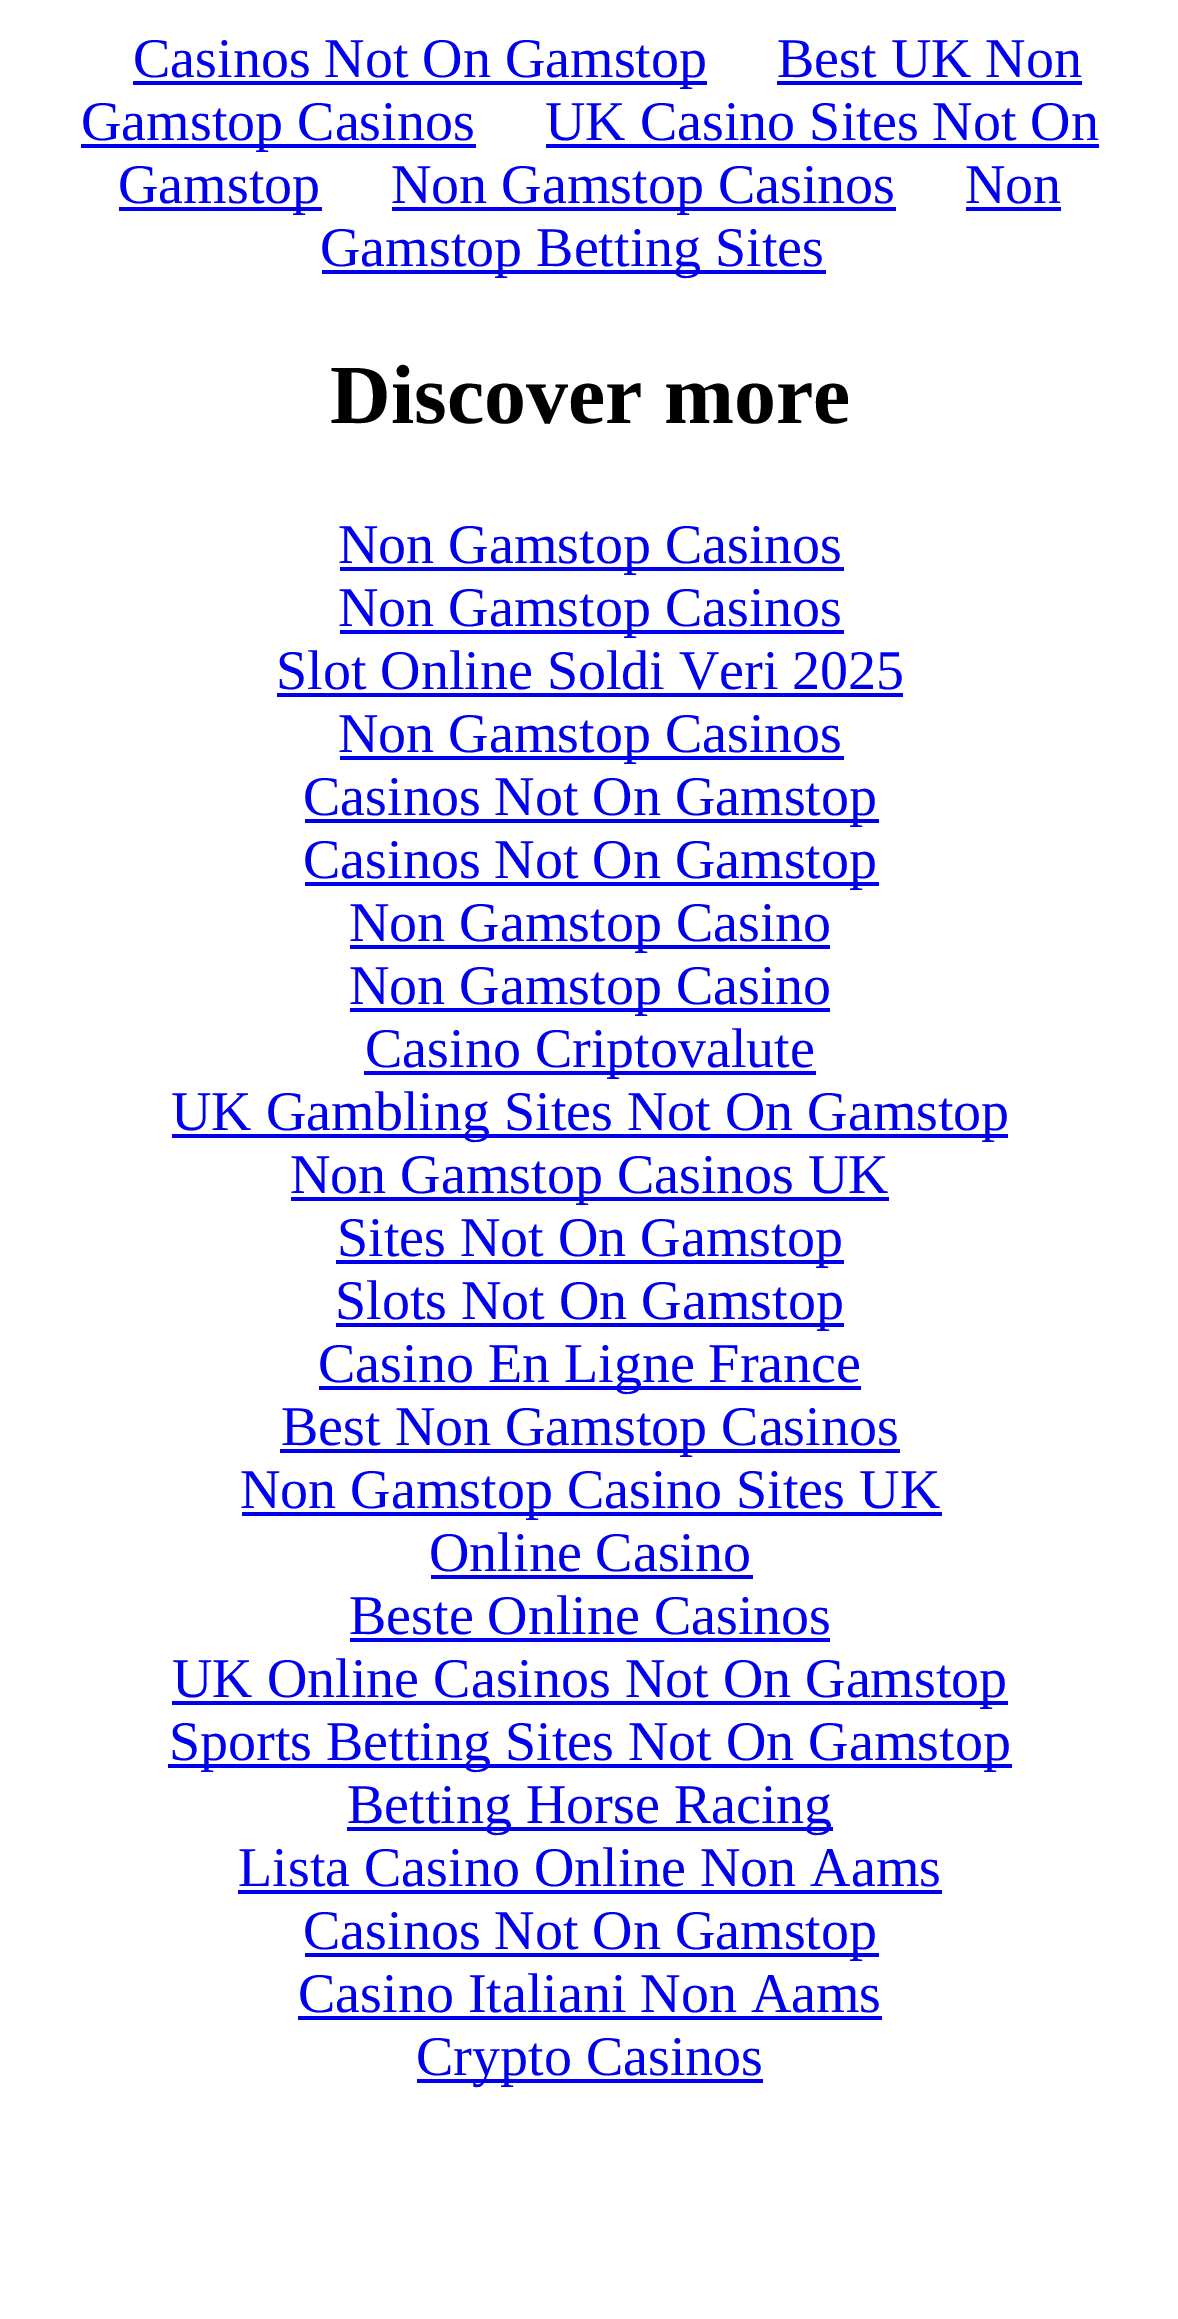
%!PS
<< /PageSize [1178 2319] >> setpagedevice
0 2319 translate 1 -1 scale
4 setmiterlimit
1 setgray
0 0 1178 2319 rectfill
0 0 0.933 setrgbcolor
133 81 574 4 rectfill
/LiberationSerif-Regular [56 0 0 -56 0 0] selectfont
133 77 moveto (Casinos Not On Gamstop) show
777 77 moveto (Best UK Non) show
777 81 305 4 rectfill
81 144 395 4 rectfill
81 140 moveto (Gamstop Casinos) show
545 140 moveto (UK Casino Sites Not On) show
546 144 553 4 rectfill
119 207 203 4 rectfill
118 203 moveto (Gamstop) show
392 207 504 4 rectfill
391 203 moveto (Non Gamstop Casinos) show
965 203 moveto (Non) show
966 207 95 4 rectfill
322 270 504 4 rectfill
320 266 moveto (Gamstop Betting Sites) show
/LiberationSerif-Bold [84 0 0 -84 0 0] selectfont
0 setgray
330 423 moveto (Discover more) show
0 0 0.933 setrgbcolor
340 567 504 4 rectfill
/LiberationSerif-Regular [56 0 0 -56 0 0] selectfont
338 563 moveto (Non Gamstop Casinos) show
340 630 504 4 rectfill
338 626 moveto (Non Gamstop Casinos) show
276 689 moveto (Slot Online Soldi Veri 2025) show
277 693 626 4 rectfill
340 756 504 4 rectfill
338 752 moveto (Non Gamstop Casinos) show
305 819 574 4 rectfill
303 815 moveto (Casinos Not On Gamstop) show
305 882 574 4 rectfill
303 878 moveto (Casinos Not On Gamstop) show
350 945 480 4 rectfill
349 941 moveto (Non Gamstop Casino) show
350 1008 480 4 rectfill
349 1004 moveto (Non Gamstop Casino) show
364 1071 452 4 rectfill
365 1067 moveto (Casino Criptovalute) show
172 1134 836 4 rectfill
171 1130 moveto (UK Gambling Sites Not On Gamstop) show
291 1197 598 4 rectfill
290 1193 moveto (Non Gamstop Casinos UK) show
336 1260 508 4 rectfill
337 1256 moveto (Sites Not On Gamstop) show
336 1323 508 4 rectfill
335 1319 moveto (Slots Not On Gamstop) show
319 1386 542 4 rectfill
318 1382 moveto (Casino En Ligne France) show
280 1449 620 4 rectfill
281 1445 moveto (Best Non Gamstop Casinos) show
242 1512 700 4 rectfill
240 1508 moveto (Non Gamstop Casino Sites UK) show
429 1571 moveto (Online Casino) show
431 1575 322 4 rectfill
349 1634 moveto (Beste Online Casinos) show
350 1638 480 4 rectfill
172 1701 836 4 rectfill
172 1697 moveto (UK Online Casinos Not On Gamstop) show
168 1764 844 4 rectfill
169 1760 moveto (Sports Betting Sites Not On Gamstop) show
347 1827 486 4 rectfill
347 1823 moveto (Betting Horse Racing) show
238 1886 moveto (Lista Casino Online Non Aams) show
238 1890 704 4 rectfill
305 1953 574 4 rectfill
303 1949 moveto (Casinos Not On Gamstop) show
298 2012 moveto (Casino Italiani Non Aams) show
298 2016 584 4 rectfill
417 2079 346 4 rectfill
416 2075 moveto (Crypto Casinos) show
showpage
